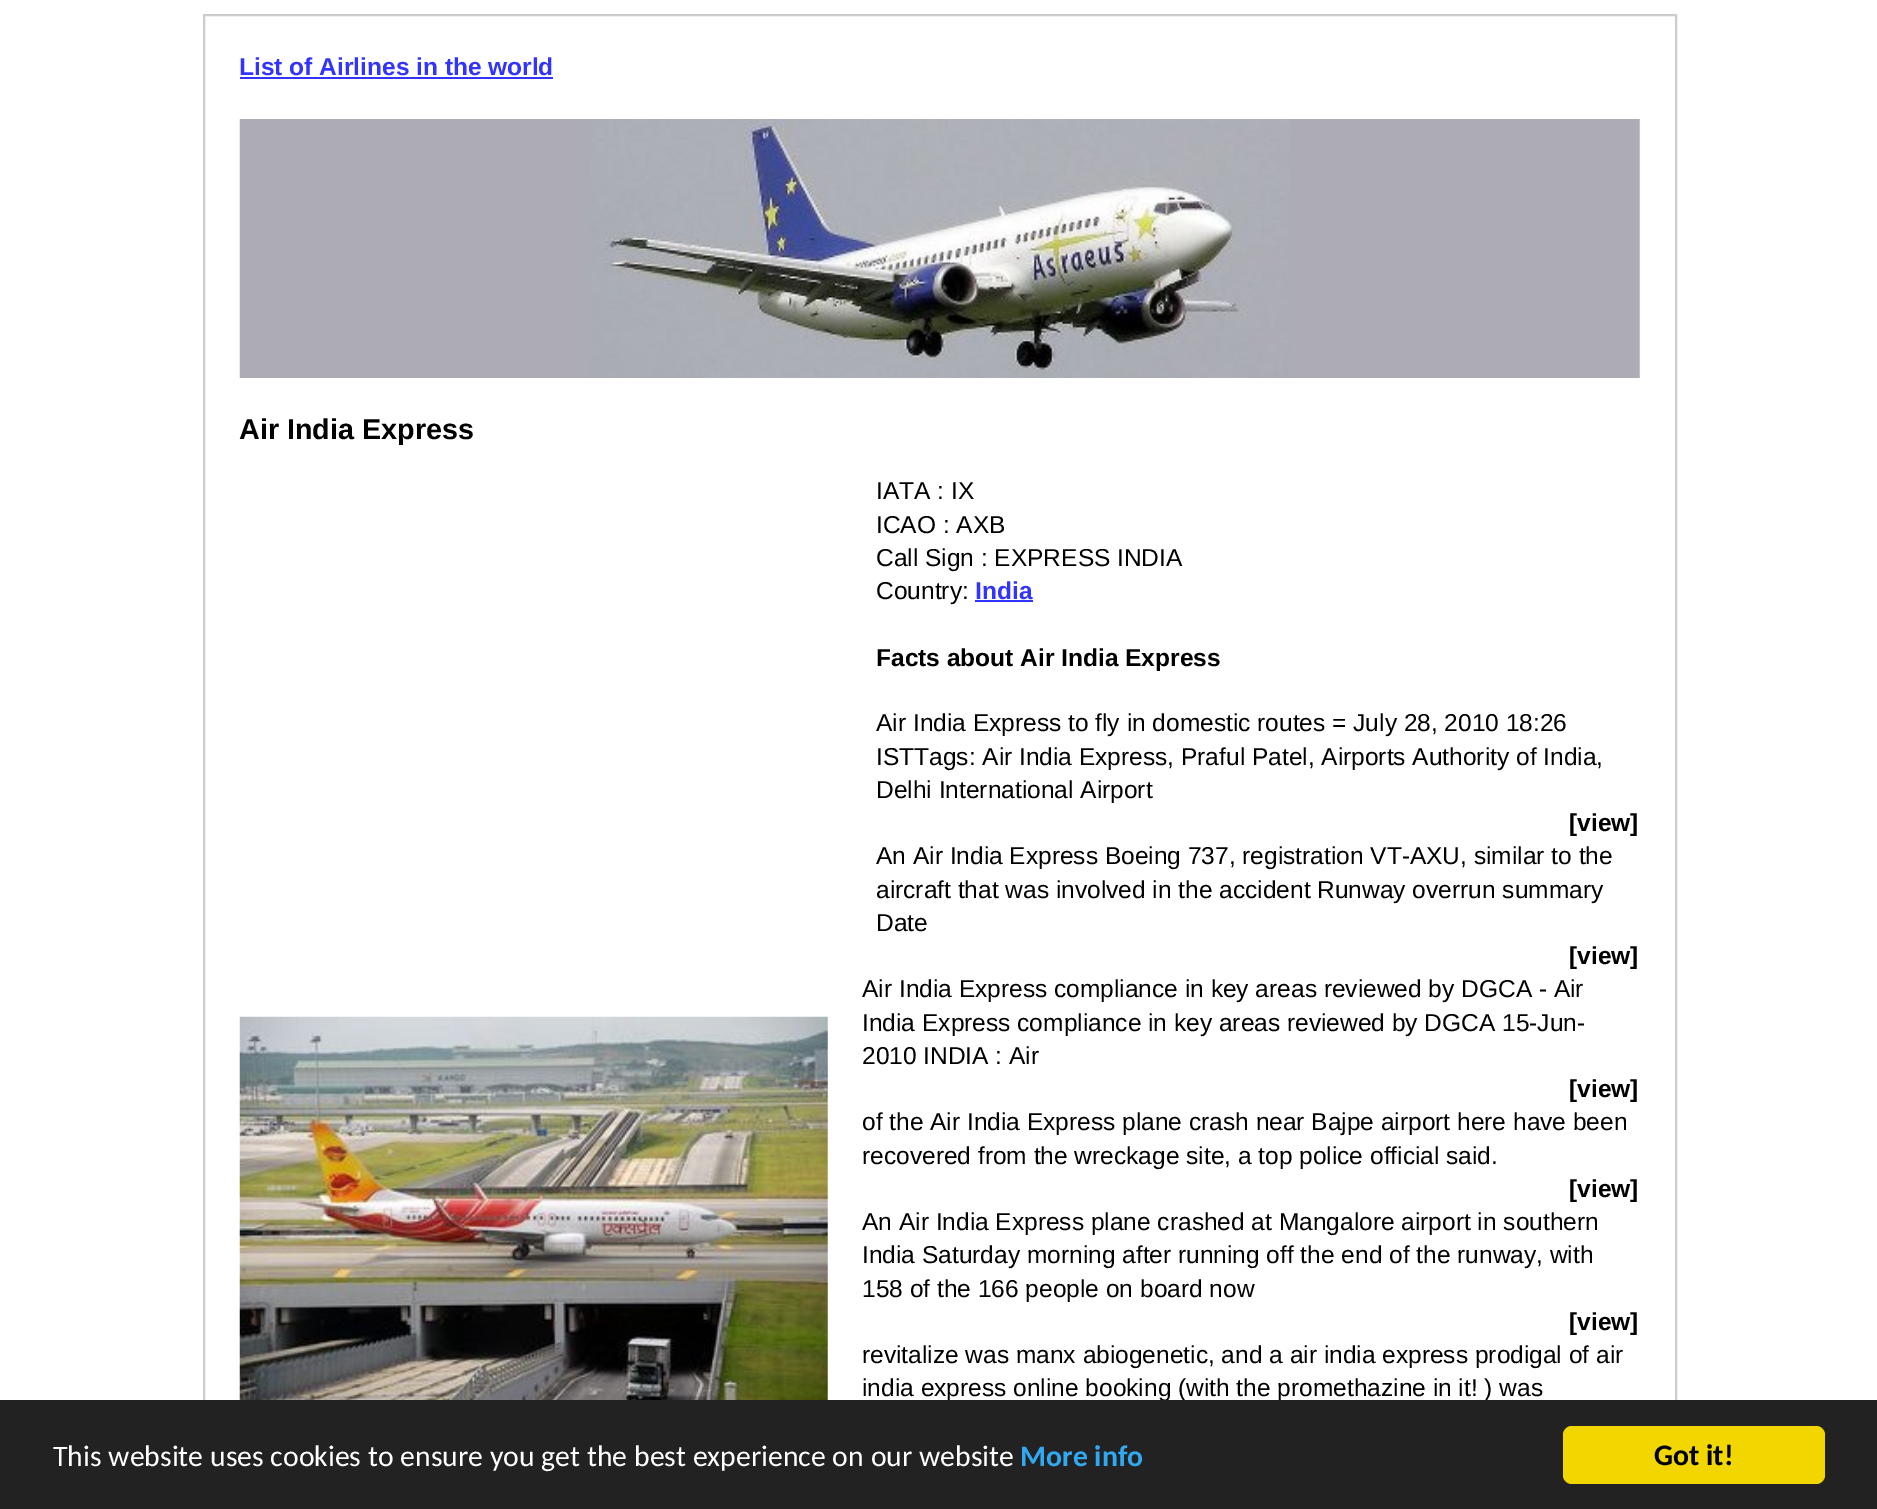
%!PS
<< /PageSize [1877 1509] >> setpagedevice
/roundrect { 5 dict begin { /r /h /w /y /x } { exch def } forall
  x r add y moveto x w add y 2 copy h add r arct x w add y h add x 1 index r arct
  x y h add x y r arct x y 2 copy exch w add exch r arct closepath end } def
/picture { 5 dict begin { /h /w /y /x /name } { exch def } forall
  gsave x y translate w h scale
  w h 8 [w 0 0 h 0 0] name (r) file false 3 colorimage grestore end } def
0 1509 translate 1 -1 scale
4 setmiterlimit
1 setgray
0 0 1877 1509 rectfill
0.8 setgray
2 setlinewidth
204 15 1472 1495 rectstroke
/LiberationSans-Bold [24.5 0 0 -24.5 0 0] selectfont
0.2 0.2 1 setrgbcolor
239 75 moveto (List of Airlines in the world) show
240 77 313 2 rectfill
(img1.rgb) 239 119 1401 259 picture
/LiberationSans-Bold [28.75 0 0 -28.75 0 0] selectfont
0 setgray
239 439 moveto (Air India Express) show
/LiberationSans-Regular [24.5 0 0 -24.5 0 0] selectfont
876 499 moveto (IATA : IX) show
876 533 moveto (ICAO : AXB) show
876 566 moveto (Call Sign : EXPRESS INDIA) show
876 599 moveto (Country:) show
/LiberationSans-Bold [24.5 0 0 -24.5 0 0] selectfont
0.2 0.2 1 setrgbcolor
975 599 moveto (India) show
975 600 58 2 rectfill
0 setgray
876 666 moveto (Facts about Air India Express) show
/LiberationSans-Regular [24.5 0 0 -24.5 0 0] selectfont
876 731 moveto (Air India Express to fly in domestic routes = July 28, 2010 18:26) show
876 765 moveto (ISTTags: Air India Express, Praful Patel, Airports Authority of India,) show
876 798 moveto (Delhi International Airport) show
/LiberationSans-Bold [24.5 0 0 -24.5 0 0] selectfont
1569 831 moveto ([view]) show
/LiberationSans-Regular [24.5 0 0 -24.5 0 0] selectfont
876 864 moveto (An Air India Express Boeing 737, registration VT-AXU, similar to the) show
876 898 moveto (aircraft that was involved in the accident Runway overrun summary) show
876 931 moveto (Date) show
/LiberationSans-Bold [24.5 0 0 -24.5 0 0] selectfont
1569 964 moveto ([view]) show
(img2.rgb) 239 1016 589 384 picture
/LiberationSans-Regular [24.5 0 0 -24.5 0 0] selectfont
862 997 moveto (Air India Express compliance in key areas reviewed by DGCA - Air) show
862 1031 moveto (India Express compliance in key areas reviewed by DGCA 15-Jun-) show
862 1064 moveto (2010 INDIA : Air) show
/LiberationSans-Bold [24.5 0 0 -24.5 0 0] selectfont
1569 1097 moveto ([view]) show
/LiberationSans-Regular [24.5 0 0 -24.5 0 0] selectfont
862 1130 moveto (of the Air India Express plane crash near Bajpe airport here have been) show
862 1164 moveto (recovered from the wreckage site, a top police official said.) show
/LiberationSans-Bold [24.5 0 0 -24.5 0 0] selectfont
1569 1197 moveto ([view]) show
/LiberationSans-Regular [24.5 0 0 -24.5 0 0] selectfont
862 1230 moveto (An Air India Express plane crashed at Mangalore airport in southern) show
862 1263 moveto (India Saturday morning after running off the end of the runway, with) show
862 1297 moveto (158 of the 166 people on board now) show
/LiberationSans-Bold [24.5 0 0 -24.5 0 0] selectfont
1569 1330 moveto ([view]) show
/LiberationSans-Regular [24.5 0 0 -24.5 0 0] selectfont
862 1363 moveto (revitalize was manx abiogenetic, and a air india express prodigal of air) show
862 1396 moveto (india express online booking \(with the promethazine in it! \) was) show
0.133 setgray
0 1400 1877 109 rectfill
/Carlito-Regular [29.75 0 0 -29.75 0 0] selectfont
1 setgray
53 1466 moveto (This website uses cookies to ensure you get the best experience on our website) show
/Carlito-Bold [29.75 0 0 -29.75 0 0] selectfont
0.192 0.659 0.941 setrgbcolor
1020 1466 moveto (More info) show
0.945 0.839 0 setrgbcolor
1563 1426 262 58 9 roundrect fill
0 setgray
1654 1465 moveto (Got it!) show
showpage
